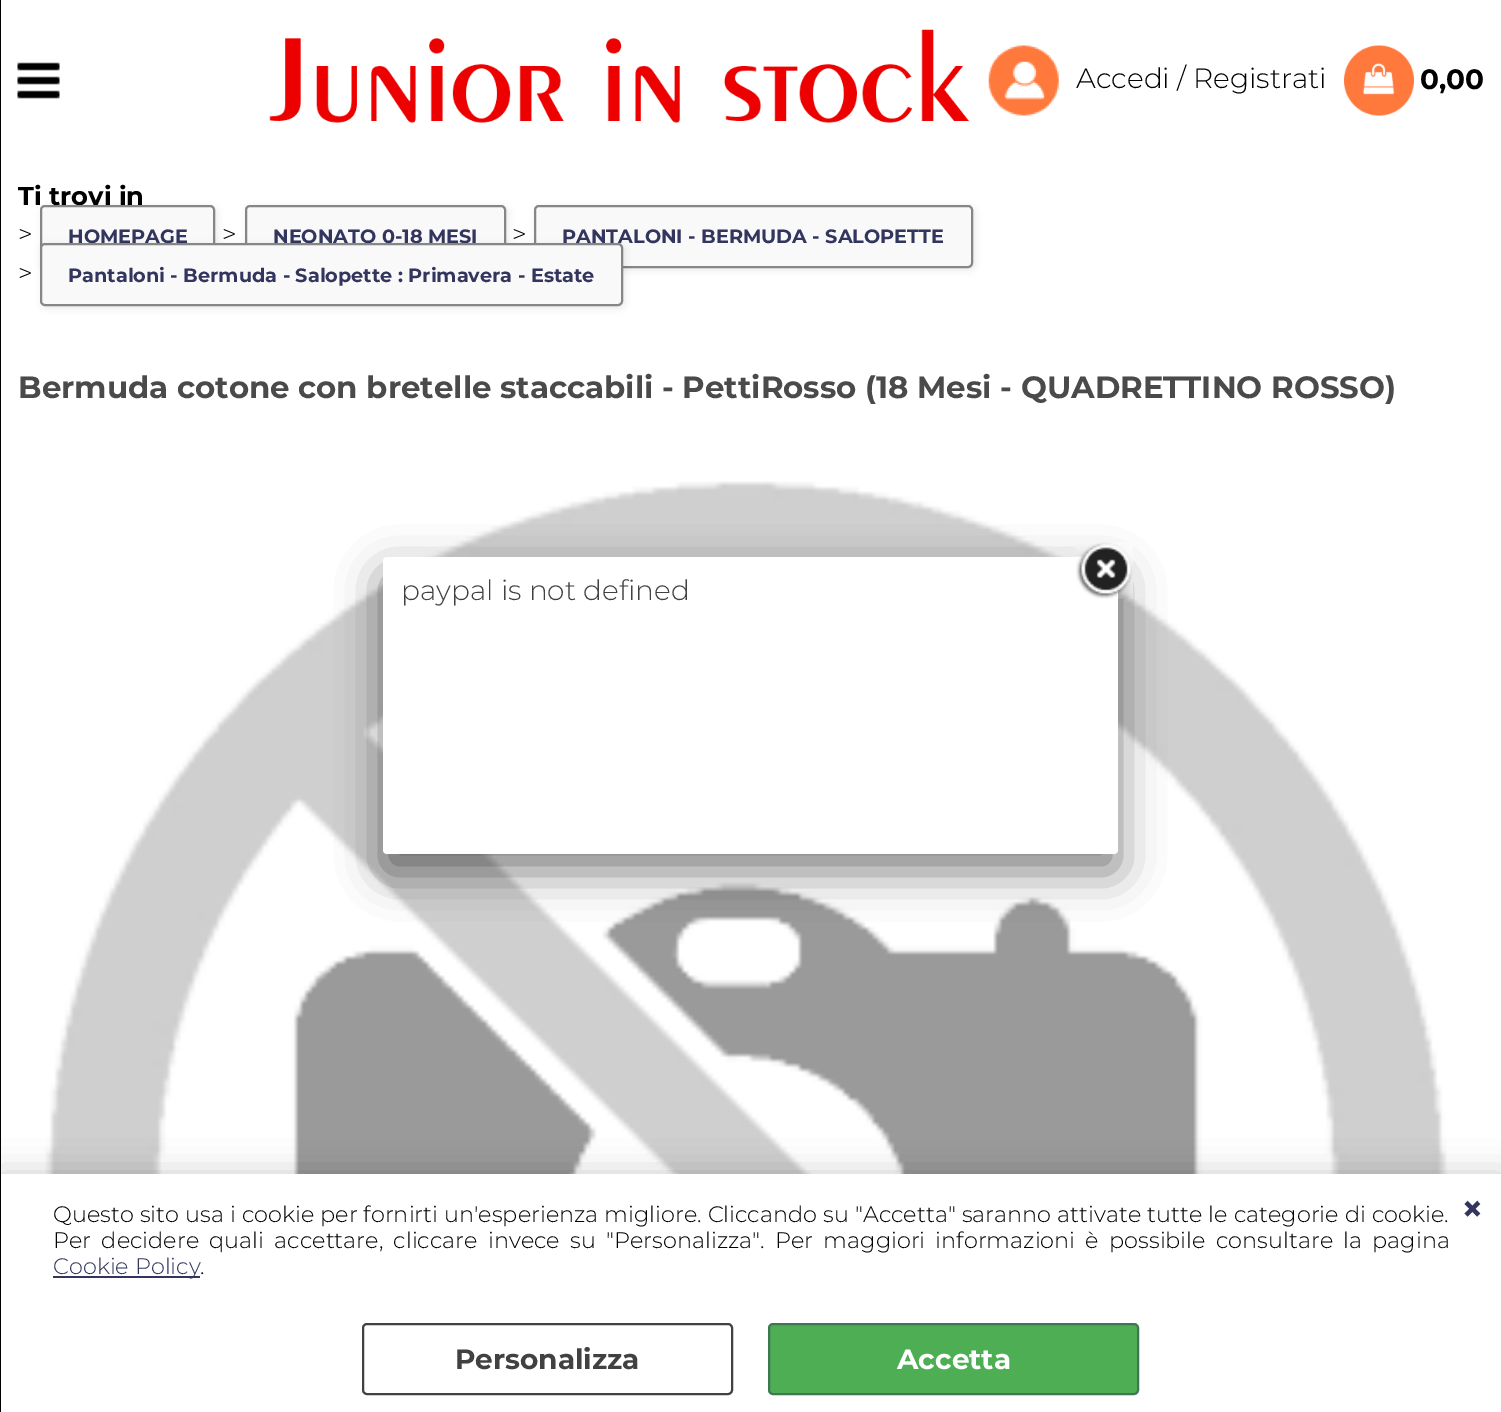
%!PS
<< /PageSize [1501 1412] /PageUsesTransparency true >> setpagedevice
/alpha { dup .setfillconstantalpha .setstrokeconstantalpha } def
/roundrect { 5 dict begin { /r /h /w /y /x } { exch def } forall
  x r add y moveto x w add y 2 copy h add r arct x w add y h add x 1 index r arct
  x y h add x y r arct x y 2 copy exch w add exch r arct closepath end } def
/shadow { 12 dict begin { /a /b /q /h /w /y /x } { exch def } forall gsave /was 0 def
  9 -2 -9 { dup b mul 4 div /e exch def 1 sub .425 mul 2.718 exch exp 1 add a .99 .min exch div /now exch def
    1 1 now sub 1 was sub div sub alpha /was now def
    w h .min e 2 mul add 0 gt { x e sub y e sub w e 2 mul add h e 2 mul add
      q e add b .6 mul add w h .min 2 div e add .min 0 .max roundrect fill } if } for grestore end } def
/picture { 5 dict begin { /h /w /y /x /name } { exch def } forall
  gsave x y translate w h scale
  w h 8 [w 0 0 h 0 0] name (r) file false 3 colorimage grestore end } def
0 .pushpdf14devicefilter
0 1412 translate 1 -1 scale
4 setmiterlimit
1 setgray
0 0 1501 1412 rectfill
(img5.rgb) 45 481 1402 693 picture
0 setgray
0 1174 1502 238 0 16 0.2 shadow
0 0 1 1412 rectfill
(img1.rgb) 17 62 43 37 picture
(img2.rgb) 269 29 701 94 picture
(img3.rgb) 988 45 71 71 picture
/Montserrat-Thin [28 0 0 -28 0 0] selectfont
1076 88 moveto (Accedi / Registrati) show
(img4.rgb) 1344 45 70 71 picture
/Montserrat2-Thin [28 0 0 -28 0 0] selectfont
1420 89 moveto (0,00) show
/Montserrat2-Thin [25.75 0 0 -25.75 0 0] selectfont
18 205 moveto (Ti trovi in) show
/Montserrat-Thin [25.75 0 0 -25.75 0 0] selectfont
18 243 moveto (>) show
42 207 175 63 5 3.5 0.08 shadow
0.976 setgray
41 206 173 61 4 roundrect gsave fill grestore
0.525 setgray
2 setlinewidth
stroke
/Montserrat2-Thin [19.25 0 0 -19.25 0 0] selectfont
0.196 0.208 0.365 setrgbcolor
68 243 moveto (HOMEPAGE) show
/Montserrat-Thin [25.75 0 0 -25.75 0 0] selectfont
0 setgray
222 243 moveto (>) show
247 207 261 63 5 3.5 0.08 shadow
0.976 setgray
246 206 259 61 4 roundrect gsave fill grestore
0.525 setgray
stroke
/Montserrat2-Thin [19.25 0 0 -19.25 0 0] selectfont
0.196 0.208 0.365 setrgbcolor
273 243 moveto (NEONATO 0-18 MESI) show
/Montserrat-Thin [25.75 0 0 -25.75 0 0] selectfont
0 setgray
512 243 moveto (>) show
536 207 439 63 5 3.5 0.08 shadow
0.976 setgray
535 206 437 61 4 roundrect gsave fill grestore
0.525 setgray
stroke
/Montserrat2-Thin [19.25 0 0 -19.25 0 0] selectfont
0.196 0.208 0.365 setrgbcolor
562 243 moveto (PANTALONI - BERMUDA - SALOPETTE) show
/Montserrat-Thin [25.75 0 0 -25.75 0 0] selectfont
0 setgray
18 282 moveto (>) show
42 245 583 63 5 3.5 0.08 shadow
0.976 setgray
41 244 581 61 4 roundrect gsave fill grestore
0.525 setgray
stroke
/Montserrat2-Thin [19.25 0 0 -19.25 0 0] selectfont
0.196 0.208 0.365 setrgbcolor
68 282 moveto (Pantaloni - Bermuda - Salopette : Primavera - Estate) show
/Montserrat2-Thin [30.8 0 0 -30.8 0 0] selectfont
0.29 setgray
18 398 moveto (Bermuda cotone con bretelle staccabili - PettiRosso \(18 Mesi - QUADRETTINO ROSSO\)) show
0 setgray
383 574 735 298 4 22 0.5 shadow
1 setgray
383 557 735 297 4 roundrect fill
/Montserrat-Thin [28 0 0 -28 0 0] selectfont
0.259 0.255 0.255 setrgbcolor
401 600 moveto (paypal is not defined) show
(img6.rgb) 1076 542 57 57 picture
1 setgray
1 1174 1500 238 rectfill
/Montserrat-Thin [22.4 0 0 -22.4 0 0] selectfont
0 setgray
53 1222 moveto 0.25 0 32 (Questo sito usa i cookie per fornirti un'esperienza migliore. Cliccando su "Accetta" saranno attivate tutte le categorie di cookie.) widthshow
53 1248 moveto 4.5 0 32 (Per decidere quali accettare, cliccare invece su "Personalizza". Per maggiori informazioni è possibile consultare la pagina) widthshow
0.196 0.208 0.365 setrgbcolor
53 1276 147 2 rectfill
53 1274 moveto (Cookie Policy) show
0 setgray
200 1274 moveto (.) show
/Montserrat2-Thin [38 0 0 -38 0 0] selectfont
0.196 0.208 0.365 setrgbcolor
1461 1222 moveto (×) show
0.259 0.255 0.255 setrgbcolor
363 1324 369 70 4 roundrect stroke
/Montserrat2-Thin [28 0 0 -28 0 0] selectfont
455 1369 moveto (Personalizza) show
0.306 0.682 0.329 setrgbcolor
769 1324 369 70 4 roundrect gsave fill grestore
0.247 0.467 0.333 setrgbcolor
stroke
1 setgray
897 1369 moveto (Accetta) show
.poppdf14devicefilter showpage
